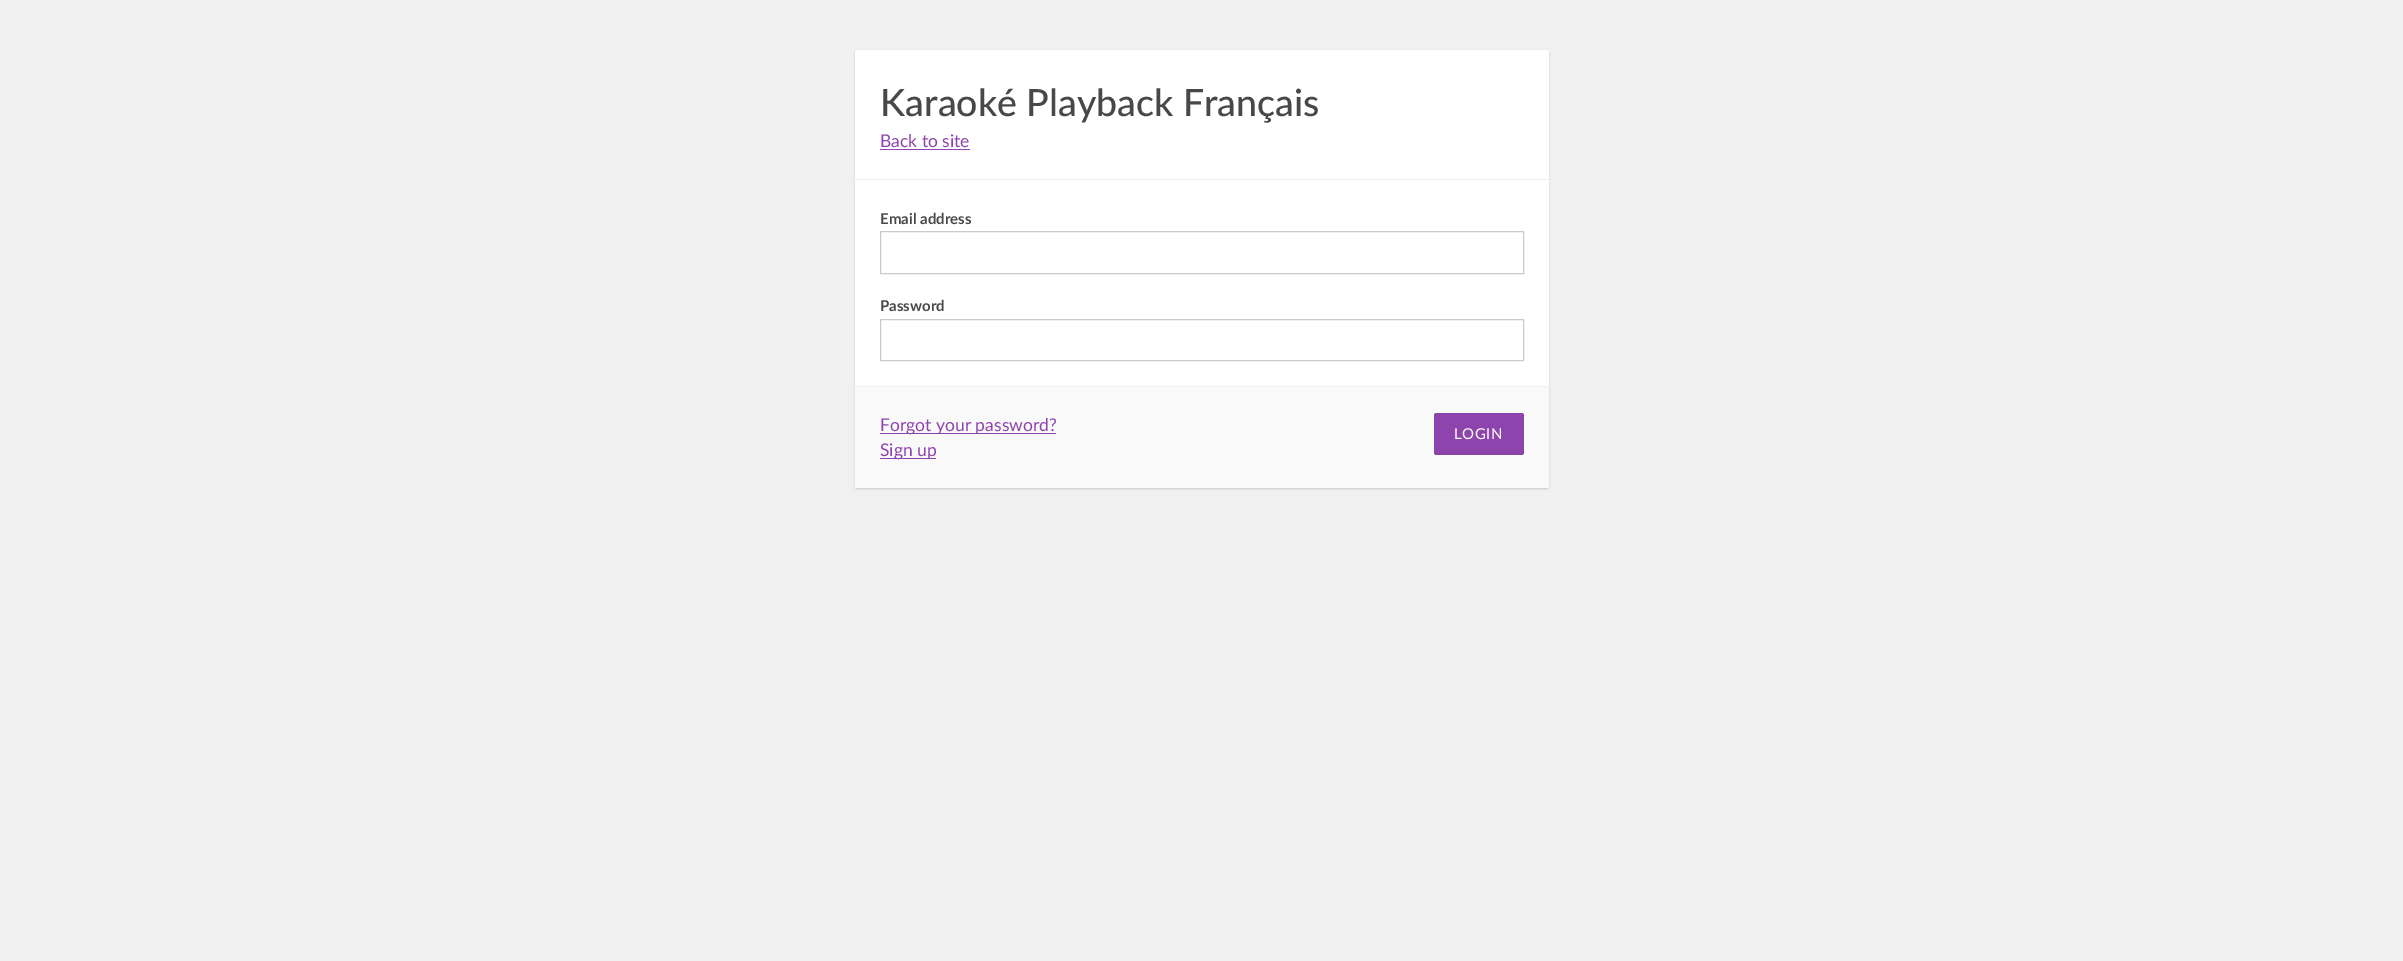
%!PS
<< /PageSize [2403 961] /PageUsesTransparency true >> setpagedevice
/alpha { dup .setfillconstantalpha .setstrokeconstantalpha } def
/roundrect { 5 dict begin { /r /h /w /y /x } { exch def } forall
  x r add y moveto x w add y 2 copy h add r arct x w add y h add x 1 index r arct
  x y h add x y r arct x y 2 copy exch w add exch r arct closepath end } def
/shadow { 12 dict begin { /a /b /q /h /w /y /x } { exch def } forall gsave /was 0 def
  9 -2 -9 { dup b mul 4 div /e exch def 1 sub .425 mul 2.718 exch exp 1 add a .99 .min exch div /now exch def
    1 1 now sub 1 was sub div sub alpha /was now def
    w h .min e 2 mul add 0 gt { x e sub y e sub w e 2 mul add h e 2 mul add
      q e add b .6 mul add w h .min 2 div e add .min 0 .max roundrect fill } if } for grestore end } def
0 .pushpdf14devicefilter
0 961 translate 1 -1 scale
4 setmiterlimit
0.941 setgray
0 0 2403 961 rectfill
0.278 0.286 0.282 setrgbcolor
855 51 694 438 2.5 1 0.25 shadow
1 setgray
855 50 694 438 2.5 roundrect fill
0.941 setgray
855 179 694 1 rectfill
/Lato-Medium [37.5 0 0 -37.5 0 0] selectfont
0.278 0.286 0.282 setrgbcolor
880 116 moveto (Karaoké Playback Français) show
/Lato-Regular [17.5 0 0 -17.5 0 0] selectfont
0.557 0.267 0.678 setrgbcolor
880 147 moveto (Back to site) show
880 149 90 1 rectfill
/Lato-Bold [15 0 0 -15 0 0] selectfont
0.278 0.286 0.282 setrgbcolor
880 224 moveto (Email address) show
0.792 setgray
880.5 231.5 643 42 rectstroke
0.278 0.286 0.282 setrgbcolor
880 311 moveto (Password) show
0.792 setgray
880.5 319.5 643 41 rectstroke
0.976 setgray
855 387 694 101 rectfill
0.941 setgray
855 386 694 1 rectfill
0.557 0.267 0.678 setrgbcolor
880 433 176 1 rectfill
/Lato-Regular [17.5 0 0 -17.5 0 0] selectfont
880 431 moveto (Forgot your password?) show
1434 413 90 42 2.5 roundrect fill
0.05 alpha
0.278 0.286 0.282 setrgbcolor
newpath 1434 450 moveto 1434 452 lineto 1434 454 1435 455 1436 455 curveto 1522 455 lineto 1523 455 1524 454 1524 452 curveto 1524 450 lineto 1524 451 1523 452 1521 452 curveto 1436 452 lineto 1435 452 1434 451 1434 450 curveto closepath fill
/Lato-Regular [15 0 0 -15 0 0] selectfont
1 alpha
1 setgray
1454 439 moveto 0.5 0 (LOGIN) ashow
0.557 0.267 0.678 setrgbcolor
880 458 56 1 rectfill
/Lato-Regular [17.5 0 0 -17.5 0 0] selectfont
880 456 moveto (Sign up) show
.poppdf14devicefilter showpage
